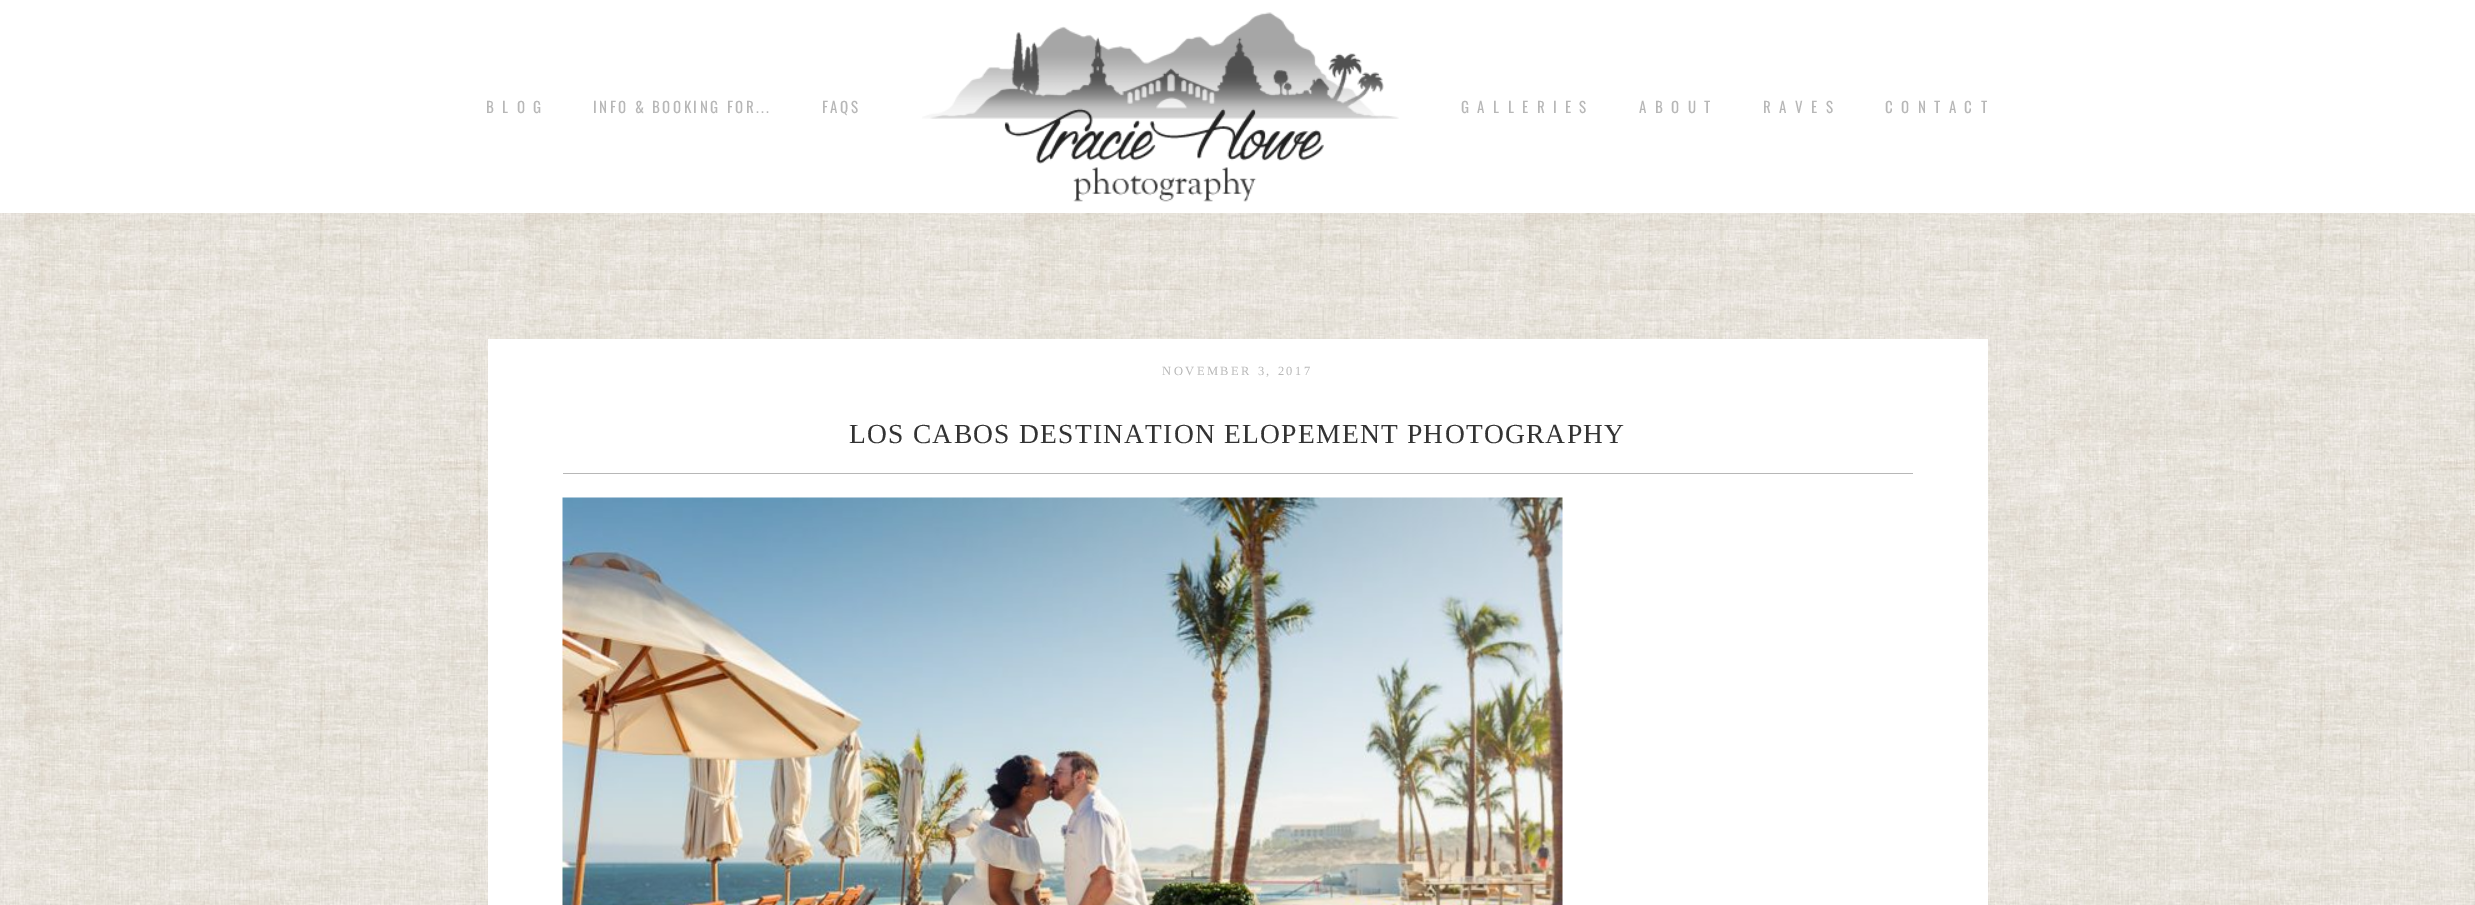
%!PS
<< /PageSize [2475 905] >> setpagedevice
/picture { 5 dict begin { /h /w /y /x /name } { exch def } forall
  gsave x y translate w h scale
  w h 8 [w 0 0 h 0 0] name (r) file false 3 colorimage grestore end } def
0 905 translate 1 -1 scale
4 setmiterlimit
1 setgray
0 0 2475 905 rectfill
(img1.rgb) 0 213 2475 692 picture
/Oswald-Regular [15 0 0 -15 0 0] selectfont
0.718 setgray
486 113 moveto 2.5 0 (B L O G) ashow
593 113 moveto 2.5 0 (INFO & BOOKING FOR...) ashow
822 113 moveto 2.5 0 (FAQS) ashow
(img2.rgb) 922 12 477 190 picture
1461 113 moveto 2.5 0 (G A L L E R I E S) ashow
1639 113 moveto 2.5 0 (A B O U T) ashow
1763 113 moveto 2.5 0 (R A V E S) ashow
1885 113 moveto 2.5 0 (C O N T A C T) ashow
1 setgray
488 339 1500 566 rectfill
/LiberationSerif-Regular [12.5 0 0 -12.5 0 0] selectfont
0.718 setgray
1162 375 moveto 2.5 0 (NOVEMBER 3, 2017) ashow
/LiberationSerif-Regular [27.5 0 0 -27.5 0 0] selectfont
0.2 setgray
849 443 moveto 1.25 0 (LOS CABOS DESTINATION ELOPEMENT PHOTOGRAPHY) ashow
0.718 setgray
563 473 1350 1 rectfill
(img3.rgb) 562 497 1001 408 picture
showpage
